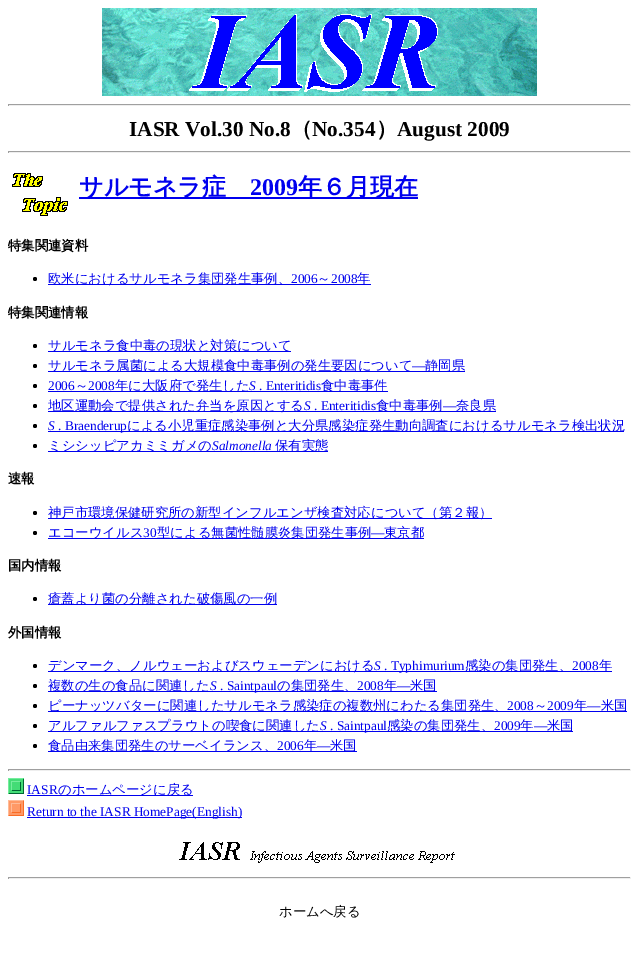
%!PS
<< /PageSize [639 977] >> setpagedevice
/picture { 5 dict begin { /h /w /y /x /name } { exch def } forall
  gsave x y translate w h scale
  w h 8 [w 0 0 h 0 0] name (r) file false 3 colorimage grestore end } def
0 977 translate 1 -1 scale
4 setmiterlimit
1 setgray
0 0 639 977 rectfill
(img1.rgb) 102 8 435 88 picture
0.624 setgray
8 104 623 1 rectfill
0.933 setgray
630 104 1 2 rectfill
8 105 623 1 rectfill
0.624 setgray
8 104 1 2 rectfill
/LiberationSerif-Bold [21.25 0 0 -21.25 0 0] selectfont
0 setgray
129 136 moveto (IASR Vol.30 No.8) show
/WenQuanYiZenHei-Bold [21.25 0 0 -21.25 0 0] selectfont
291 136 moveto (（) show
/LiberationSerif-Bold [21.25 0 0 -21.25 0 0] selectfont
312 136 moveto (No.354) show
/WenQuanYiZenHei-Bold [21.25 0 0 -21.25 0 0] selectfont
376 136 moveto (）) show
/LiberationSerif-Bold [21.25 0 0 -21.25 0 0] selectfont
397 136 moveto (August 2009) show
0.624 setgray
8 151 623 1 rectfill
0.933 setgray
630 151 1 2 rectfill
8 152 623 1 rectfill
0.624 setgray
8 151 1 2 rectfill
(img2.rgb) 12 173 56 43 picture
0 0 0.933 setrgbcolor
79 197 339 2 rectfill
/WenQuanYiZenHei-Bold [24 0 0 -24 0 0] selectfont
79 195 moveto (サルモネラ症) show
/LiberationSerif-Bold [24 0 0 -24 0 0] selectfont
250 195 moveto (2009) show
/WenQuanYiZenHei-Bold [24 0 0 -24 0 0] selectfont
298 195 moveto (年６月現在) show
/WenQuanYiZenHei-Bold [13.35 0 0 -13.35 0 0] selectfont
0 setgray
8 250 moveto (特集関連資料) show
newpath 35 279 2 0 360 arc closepath fill
0 0 0.933 setrgbcolor
48 284 323 1 rectfill
/WenQuanYiZenHei-Medium [13.35 0 0 -13.35 0 0] selectfont
48 283 moveto (欧米におけるサルモネラ集団発生事例、) show
/LiberationSerif-Regular [13.35 0 0 -13.35 0 0] selectfont
291 283 moveto (2006) show
/WenQuanYiZenHei-Medium [13.35 0 0 -13.35 0 0] selectfont
317 283 moveto (～) show
/LiberationSerif-Regular [13.35 0 0 -13.35 0 0] selectfont
331 283 moveto (2008) show
/WenQuanYiZenHei-Medium [13.35 0 0 -13.35 0 0] selectfont
357 283 moveto (年) show
/WenQuanYiZenHei-Bold [13.35 0 0 -13.35 0 0] selectfont
0 setgray
8 317 moveto (特集関連情報) show
newpath 35 346 2 0 360 arc closepath fill
0 0 0.933 setrgbcolor
48 351 243 1 rectfill
/WenQuanYiZenHei-Medium [13.35 0 0 -13.35 0 0] selectfont
48 350 moveto (サルモネラ食中毒の現状と対策について) show
0 setgray
newpath 35 366 2 0 360 arc closepath fill
0 0 0.933 setrgbcolor
48 371 417 1 rectfill
48 370 moveto (サルモネラ属菌による大規模食中毒事例の発生要因について) show
/LiberationSerif-Regular [13.35 0 0 -13.35 0 0] selectfont
412 370 moveto (―) show
/WenQuanYiZenHei-Medium [13.35 0 0 -13.35 0 0] selectfont
425 370 moveto (静岡県) show
0 setgray
newpath 35 386 2 0 360 arc closepath fill
/LiberationSerif-Regular [13.35 0 0 -13.35 0 0] selectfont
0 0 0.933 setrgbcolor
48 390 moveto (2006) show
/WenQuanYiZenHei-Medium [13.35 0 0 -13.35 0 0] selectfont
75 390 moveto (～) show
48 391 340 1 rectfill
/LiberationSerif-Regular [13.35 0 0 -13.35 0 0] selectfont
88 390 moveto (2008) show
/WenQuanYiZenHei-Medium [13.35 0 0 -13.35 0 0] selectfont
115 390 moveto (年に大阪府で発生した) show
/LiberationSerif-Italic [13.35 0 0 -13.35 0 0] selectfont
249 390 moveto (S) show
/LiberationSerif-Regular [13.35 0 0 -13.35 0 0] selectfont
259 390 moveto (. Enteritidis) show
/WenQuanYiZenHei-Medium [13.35 0 0 -13.35 0 0] selectfont
321 390 moveto (食中毒事件) show
0 setgray
newpath 35 406 2 0 360 arc closepath fill
0 0 0.933 setrgbcolor
48 411 448 1 rectfill
48 410 moveto (地区運動会で提供された弁当を原因とする) show
/LiberationSerif-Italic [13.35 0 0 -13.35 0 0] selectfont
304 410 moveto (S) show
/LiberationSerif-Regular [13.35 0 0 -13.35 0 0] selectfont
314 410 moveto (. Enteritidis) show
/WenQuanYiZenHei-Medium [13.35 0 0 -13.35 0 0] selectfont
376 410 moveto (食中毒事例) show
/LiberationSerif-Regular [13.35 0 0 -13.35 0 0] selectfont
443 410 moveto (―) show
/WenQuanYiZenHei-Medium [13.35 0 0 -13.35 0 0] selectfont
456 410 moveto (奈良県) show
0 setgray
newpath 35 426 2 0 360 arc closepath fill
/LiberationSerif-Italic [13.35 0 0 -13.35 0 0] selectfont
0 0 0.933 setrgbcolor
48 430 moveto (S) show
48 431 576 1 rectfill
/LiberationSerif-Regular [13.35 0 0 -13.35 0 0] selectfont
58 430 moveto (. Braenderup) show
/WenQuanYiZenHei-Medium [13.35 0 0 -13.35 0 0] selectfont
127 430 moveto (による小児重症感染事例と大分県感染症発生動向調査におけるサルモネラ検出状況) show
0 setgray
newpath 35 446 2 0 360 arc closepath fill
0 0 0.933 setrgbcolor
48 451 280 1 rectfill
48 450 moveto (ミシシッピアカミミガメの) show
/LiberationSerif-Italic [13.35 0 0 -13.35 0 0] selectfont
212 450 moveto (Salmonella) show
/WenQuanYiZenHei-Medium [13.35 0 0 -13.35 0 0] selectfont
275 450 moveto (保有実態) show
/WenQuanYiZenHei-Bold [13.35 0 0 -13.35 0 0] selectfont
0 setgray
8 483 moveto (速報) show
newpath 35 513 2 0 360 arc closepath fill
0 0 0.933 setrgbcolor
48 518 444 1 rectfill
/WenQuanYiZenHei-Medium [13.35 0 0 -13.35 0 0] selectfont
48 517 moveto (神戸市環境保健研究所の新型インフルエンザ検査対応について（第２報）) show
0 setgray
newpath 35 533 2 0 360 arc closepath fill
0 0 0.933 setrgbcolor
48 538 376 1 rectfill
48 537 moveto (エコーウイルス) show
/LiberationSerif-Regular [13.35 0 0 -13.35 0 0] selectfont
143 537 moveto (30) show
/WenQuanYiZenHei-Medium [13.35 0 0 -13.35 0 0] selectfont
157 537 moveto (型による無菌性髄膜炎集団発生事例) show
/LiberationSerif-Regular [13.35 0 0 -13.35 0 0] selectfont
371 537 moveto (―) show
/WenQuanYiZenHei-Medium [13.35 0 0 -13.35 0 0] selectfont
384 537 moveto (東京都) show
/WenQuanYiZenHei-Bold [13.35 0 0 -13.35 0 0] selectfont
0 setgray
8 570 moveto (国内情報) show
newpath 35 599 2 0 360 arc closepath fill
0 0 0.933 setrgbcolor
48 604 229 1 rectfill
/WenQuanYiZenHei-Medium [13.35 0 0 -13.35 0 0] selectfont
48 603 moveto (瘡蓋より菌の分離された破傷風の一例) show
/WenQuanYiZenHei-Bold [13.35 0 0 -13.35 0 0] selectfont
0 setgray
8 637 moveto (外国情報) show
newpath 35 666 2 0 360 arc closepath fill
0 0 0.933 setrgbcolor
48 671 564 1 rectfill
/WenQuanYiZenHei-Medium [13.35 0 0 -13.35 0 0] selectfont
48 670 moveto (デンマーク、ノルウェーおよびスウェーデンにおける) show
/LiberationSerif-Italic [13.35 0 0 -13.35 0 0] selectfont
374 670 moveto (S) show
/LiberationSerif-Regular [13.35 0 0 -13.35 0 0] selectfont
384 670 moveto (. Typhimurium) show
/WenQuanYiZenHei-Medium [13.35 0 0 -13.35 0 0] selectfont
465 670 moveto (感染の集団発生、) show
/LiberationSerif-Regular [13.35 0 0 -13.35 0 0] selectfont
572 670 moveto (2008) show
/WenQuanYiZenHei-Medium [13.35 0 0 -13.35 0 0] selectfont
599 670 moveto (年) show
0 setgray
newpath 35 686 2 0 360 arc closepath fill
0 0 0.933 setrgbcolor
48 691 389 1 rectfill
48 690 moveto (複数の生の食品に関連した) show
/LiberationSerif-Italic [13.35 0 0 -13.35 0 0] selectfont
210 690 moveto (S) show
/LiberationSerif-Regular [13.35 0 0 -13.35 0 0] selectfont
220 690 moveto (. Saintpaul) show
/WenQuanYiZenHei-Medium [13.35 0 0 -13.35 0 0] selectfont
277 690 moveto (の集団発生、) show
/LiberationSerif-Regular [13.35 0 0 -13.35 0 0] selectfont
357 690 moveto (2008) show
/WenQuanYiZenHei-Medium [13.35 0 0 -13.35 0 0] selectfont
384 690 moveto (年) show
/LiberationSerif-Regular [13.35 0 0 -13.35 0 0] selectfont
397 690 moveto (―) show
/WenQuanYiZenHei-Medium [13.35 0 0 -13.35 0 0] selectfont
410 690 moveto (米国) show
0 setgray
newpath 35 706 2 0 360 arc closepath fill
0 0 0.933 setrgbcolor
48 711 579 1 rectfill
48 710 moveto (ピーナッツバターに関連したサルモネラ感染症の複数州にわたる集団発生、) show
/LiberationSerif-Regular [13.35 0 0 -13.35 0 0] selectfont
507 710 moveto (2008) show
/WenQuanYiZenHei-Medium [13.35 0 0 -13.35 0 0] selectfont
534 710 moveto (～) show
/LiberationSerif-Regular [13.35 0 0 -13.35 0 0] selectfont
547 710 moveto (2009) show
/WenQuanYiZenHei-Medium [13.35 0 0 -13.35 0 0] selectfont
574 710 moveto (年) show
/LiberationSerif-Regular [13.35 0 0 -13.35 0 0] selectfont
587 710 moveto (―) show
/WenQuanYiZenHei-Medium [13.35 0 0 -13.35 0 0] selectfont
601 710 moveto (米国) show
0 setgray
newpath 35 726 2 0 360 arc closepath fill
0 0 0.933 setrgbcolor
48 731 525 1 rectfill
48 730 moveto (アルファルファスプラウトの喫食に関連した) show
/LiberationSerif-Italic [13.35 0 0 -13.35 0 0] selectfont
320 730 moveto (S) show
/LiberationSerif-Regular [13.35 0 0 -13.35 0 0] selectfont
330 730 moveto (. Saintpaul) show
/WenQuanYiZenHei-Medium [13.35 0 0 -13.35 0 0] selectfont
387 730 moveto (感染の集団発生、) show
/LiberationSerif-Regular [13.35 0 0 -13.35 0 0] selectfont
494 730 moveto (2009) show
/WenQuanYiZenHei-Medium [13.35 0 0 -13.35 0 0] selectfont
520 730 moveto (年) show
/LiberationSerif-Regular [13.35 0 0 -13.35 0 0] selectfont
534 730 moveto (―) show
/WenQuanYiZenHei-Medium [13.35 0 0 -13.35 0 0] selectfont
547 730 moveto (米国) show
0 setgray
newpath 35 746 2 0 360 arc closepath fill
0 0 0.933 setrgbcolor
48 751 309 1 rectfill
48 750 moveto (食品由来集団発生のサーベイランス、) show
/LiberationSerif-Regular [13.35 0 0 -13.35 0 0] selectfont
277 750 moveto (2006) show
/WenQuanYiZenHei-Medium [13.35 0 0 -13.35 0 0] selectfont
304 750 moveto (年) show
/LiberationSerif-Regular [13.35 0 0 -13.35 0 0] selectfont
317 750 moveto (―) show
/WenQuanYiZenHei-Medium [13.35 0 0 -13.35 0 0] selectfont
330 750 moveto (米国) show
0.624 setgray
8 769 623 1 rectfill
0.933 setgray
630 769 1 2 rectfill
8 770 623 1 rectfill
0.624 setgray
8 769 1 2 rectfill
(img3.rgb) 8 778 16 16 picture
/LiberationSerif-Regular [13.35 0 0 -13.35 0 0] selectfont
0 0 0.933 setrgbcolor
27 794 moveto (IASR) show
27 795 166 1 rectfill
/WenQuanYiZenHei-Medium [13.35 0 0 -13.35 0 0] selectfont
58 794 moveto (のホームページに戻る) show
(img4.rgb) 8 800 16 16 picture
27 817 215 1 rectfill
/LiberationSerif-Regular [13.35 0 0 -13.35 0 0] selectfont
27 816 moveto (Return to the IASR HomePage\(English\)) show
(img5.rgb) 179 842 276 21 picture
0.624 setgray
8 877 623 1 rectfill
0.933 setgray
630 877 1 2 rectfill
8 878 623 1 rectfill
0.624 setgray
8 877 1 2 rectfill
/WenQuanYiZenHei-Medium [13.35 0 0 -13.35 0 0] selectfont
0 setgray
279 916 moveto (ホームへ戻る) show
showpage
